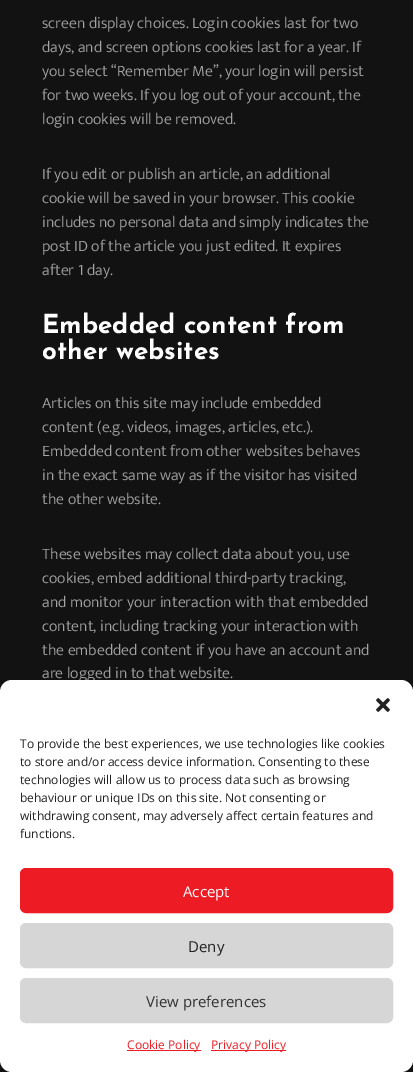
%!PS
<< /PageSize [413 1072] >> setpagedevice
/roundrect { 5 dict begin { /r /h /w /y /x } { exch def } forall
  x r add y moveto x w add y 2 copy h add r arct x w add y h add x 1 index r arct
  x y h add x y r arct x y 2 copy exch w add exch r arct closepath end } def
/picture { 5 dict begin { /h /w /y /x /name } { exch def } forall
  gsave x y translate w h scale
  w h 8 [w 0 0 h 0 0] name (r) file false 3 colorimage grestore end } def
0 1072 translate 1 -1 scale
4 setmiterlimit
0.071 setgray
0 0 413 1072 rectfill
/Mukta-Light [16 0 0 -16 0 0] selectfont
0.647 setgray
42 28 moveto (screen display choices. Login cookies last for two) show
42 52 moveto (days, and screen options cookies last for a year. If) show
42 76 moveto (you select “Remember Me”, your login will persist) show
42 100 moveto (for two weeks. If you log out of your account, the) show
42 124 moveto (login cookies will be removed.) show
42 179 moveto (If you edit or publish an article, an additional) show
42 203 moveto (cookie will be saved in your browser. This cookie) show
42 227 moveto (includes no personal data and simply indicates the) show
42 251 moveto (post ID of the article you just edited. It expires) show
42 275 moveto (after 1 day.) show
/JosefinSans-Thin [26 0 0 -26 0 0] selectfont
1 setgray
42 333 moveto (Embedded content from) show
42 359 moveto (other websites) show
/Mukta-Light [16 0 0 -16 0 0] selectfont
0.647 setgray
42 408 moveto (Articles on this site may include embedded) show
42 432 moveto (content \(e.g. videos, images, articles, etc.\).) show
42 456 moveto (Embedded content from other websites behaves) show
42 480 moveto (in the exact same way as if the visitor has visited) show
42 504 moveto (the other website.) show
42 559 moveto (These websites may collect data about you, use) show
42 583 moveto (cookies, embed additional third-party tracking,) show
42 607 moveto (and monitor your interaction with that embedded) show
42 631 moveto (content, including tracking your interaction with) show
42 655 moveto (the embedded content if you have an account and) show
42 678 moveto (are logged in to that website.) show
1 setgray
0 680 413 392 12 roundrect fill
(img1.rgb) 376 698 14 14 picture
/OpenSans-Regular [12 0 0 -12 0 0] selectfont
0.133 setgray
20 748 moveto (To provide the best experiences, we use technologies like cookies) show
20 766 moveto (to store and/or access device information. Consenting to these) show
20 784 moveto (technologies will allow us to process data such as browsing) show
20 802 moveto (behaviour or unique IDs on this site. Not consenting or) show
20 820 moveto (withdrawing consent, may adversely affect certain features and) show
20 838 moveto (functions.) show
0.929 0.11 0.141 setrgbcolor
20.5 868.5 372 44 5.5 roundrect gsave fill grestore
stroke
/OpenSans-Regular [15 0 0 -15 0 0] selectfont
1 setgray
183 897 moveto (Accept) show
0.839 setgray
20.5 923.5 372 44 5.5 roundrect gsave fill grestore
stroke
0.133 setgray
188 952 moveto (Deny) show
0.839 setgray
20.5 978.5 372 44 5.5 roundrect gsave fill grestore
stroke
0.2 setgray
146 1007 moveto (View preferences) show
0.929 0.11 0.141 setrgbcolor
127 1050 74 1 rectfill
/OpenSans-Regular [12 0 0 -12 0 0] selectfont
127 1049 moveto (Cookie Policy) show
211 1050 75 1 rectfill
211 1049 moveto (Privacy Policy) show
showpage
